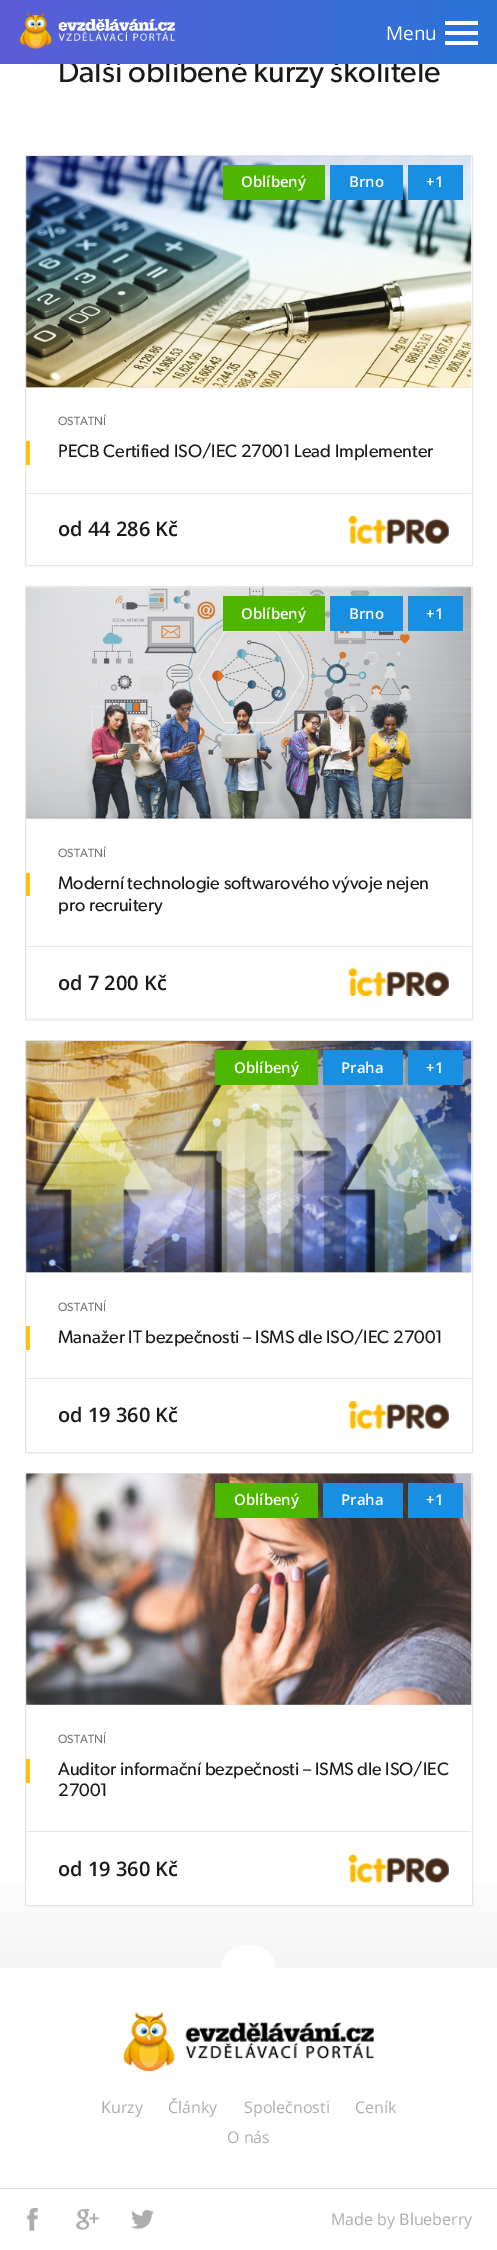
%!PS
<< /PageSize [497 2250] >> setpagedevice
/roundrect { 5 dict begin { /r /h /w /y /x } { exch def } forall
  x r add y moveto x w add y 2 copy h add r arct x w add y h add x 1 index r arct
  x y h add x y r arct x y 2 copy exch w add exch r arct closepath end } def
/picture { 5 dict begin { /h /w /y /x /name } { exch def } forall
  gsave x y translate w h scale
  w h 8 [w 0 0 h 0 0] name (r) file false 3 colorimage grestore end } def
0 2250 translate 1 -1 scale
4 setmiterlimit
1 setgray
0 0 497 2250 rectfill
/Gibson-Regular [31 0 0 -31 0 0] selectfont
0.098 setgray
58 82 moveto (Další oblíbené kurzy školitele) show
gsave newpath 0 0 moveto 497 0 lineto 497 64 lineto 0 64 lineto closepath clip newpath
<< /ShadingType 2 /ColorSpace /DeviceRGB /Coords [0 32 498 32] /Extend [true true] /Function << /FunctionType 2 /Domain [0 1] /C0 [0.361 0.365 0.839] /C1 [0.161 0.455 0.839] /N 1 >> >> shfill grestore
(img1.rgb) 19 12 156 37 picture
/OpenSans-Regular [19 0 0 -19 0 0] selectfont
1 setgray
386 40 moveto (Menu) show
445 21 33 4 1 roundrect fill
445 31 33 4 rectfill
445 41 33 4 1 roundrect fill
0.898 setgray
25.5 155.5 447 410 rectstroke
26 156 445 232 rectfill
(img2.rgb) 26 156 446 232 picture
0.302 0.718 0 setrgbcolor
223 165 102 35 rectfill
/OpenSans-SemiBold [15 0 0 -15 0 0] selectfont
1 setgray
241 187 moveto (Oblíbený) show
0.094 0.561 0.878 setrgbcolor
330 165 73 35 rectfill
1 setgray
349 187 moveto (Brno) show
0.094 0.561 0.878 setrgbcolor
408 165 55 35 rectfill
1 setgray
426 187 moveto (+1) show
/Gibson-Regular [12 0 0 -12 0 0] selectfont
0.451 setgray
58 425 moveto (OSTATNÍ) show
1 0.757 0.027 setrgbcolor
26 441 4 24 rectfill
/Gibson-Regular [18 0 0 -18 0 0] selectfont
0.098 setgray
58 457 moveto (PECB Certified ISO/IEC 27001 Lead Implementer) show
0.898 setgray
26 493 445 1 rectfill
/OpenSans-SemiBold [20 0 0 -20 0 0] selectfont
0.098 setgray
58 536 moveto (od 44 286 Kč) show
(img3.rgb) 348 516 101 28 picture
0.898 setgray
25.5 586.5 447 433 rectstroke
26 588 445 231 rectfill
(img4.rgb) 26 587 446 232 picture
0.302 0.718 0 setrgbcolor
223 596 102 35 rectfill
/OpenSans-SemiBold [15 0 0 -15 0 0] selectfont
1 setgray
241 619 moveto (Oblíbený) show
0.094 0.561 0.878 setrgbcolor
330 596 73 35 rectfill
1 setgray
349 619 moveto (Brno) show
0.094 0.561 0.878 setrgbcolor
408 596 55 35 rectfill
1 setgray
426 619 moveto (+1) show
/Gibson-Regular [12 0 0 -12 0 0] selectfont
0.451 setgray
58 857 moveto (OSTATNÍ) show
1 0.757 0.027 setrgbcolor
26 873 4 23 rectfill
/Gibson-Regular [18 0 0 -18 0 0] selectfont
0.098 setgray
58 889 moveto (Moderní technologie softwarového vývoje nejen) show
58 911 moveto (pro recruitery) show
0.898 setgray
26 946 445 1 rectfill
/OpenSans-SemiBold [20 0 0 -20 0 0] selectfont
0.098 setgray
58 990 moveto (od 7 200 Kč) show
(img5.rgb) 348 968 101 28 picture
0.898 setgray
25.5 1040.5 447 412 rectstroke
26 1041 445 232 rectfill
(img6.rgb) 26 1041 446 232 picture
0.302 0.718 0 setrgbcolor
215 1050 103 35 rectfill
/OpenSans-SemiBold [15 0 0 -15 0 0] selectfont
1 setgray
234 1073 moveto (Oblíbený) show
0.094 0.561 0.878 setrgbcolor
323 1050 80 35 rectfill
1 setgray
341 1073 moveto (Praha) show
0.094 0.561 0.878 setrgbcolor
408 1050 55 35 rectfill
1 setgray
426 1073 moveto (+1) show
/Gibson-Regular [12 0 0 -12 0 0] selectfont
0.451 setgray
58 1311 moveto (OSTATNÍ) show
1 0.757 0.027 setrgbcolor
26 1326 4 24 rectfill
/Gibson-Regular [18 0 0 -18 0 0] selectfont
0.098 setgray
58 1343 moveto (Manažer IT bezpečnosti – ISMS dle ISO/IEC 27001) show
0.898 setgray
26 1378 445 1 rectfill
/OpenSans-SemiBold [20 0 0 -20 0 0] selectfont
0.098 setgray
58 1422 moveto (od 19 360 Kč) show
(img3.rgb) 348 1401 101 28 picture
gsave newpath 0 1883 moveto 497 1883 lineto 497 1968 lineto 0 1968 lineto closepath clip newpath
<< /ShadingType 2 /ColorSpace /DeviceRGB /Coords [249 1855 249 1968] /Extend [true true] /Function << /FunctionType 2 /Domain [0 1] /C0 [1 1 1] /C1 [0.961 0.961 0.961] /N 1 >> >> shfill grestore
1 setgray
26 1883 446 22 rectfill
0.898 setgray
25.5 1473.5 447 432 rectstroke
26 1474 445 231 rectfill
(img7.rgb) 26 1473 446 232 picture
0.302 0.718 0 setrgbcolor
215 1483 103 35 rectfill
/OpenSans-SemiBold [15 0 0 -15 0 0] selectfont
1 setgray
234 1505 moveto (Oblíbený) show
0.094 0.561 0.878 setrgbcolor
323 1483 80 35 rectfill
1 setgray
341 1505 moveto (Praha) show
0.094 0.561 0.878 setrgbcolor
408 1483 55 35 rectfill
1 setgray
426 1505 moveto (+1) show
/Gibson-Regular [12 0 0 -12 0 0] selectfont
0.451 setgray
58 1743 moveto (OSTATNÍ) show
1 0.757 0.027 setrgbcolor
26 1759 4 24 rectfill
/Gibson-Regular [18 0 0 -18 0 0] selectfont
0.098 setgray
58 1775 moveto (Auditor informační bezpečnosti – ISMS dle ISO/IEC) show
58 1796 moveto (27001) show
0.898 setgray
26 1831 445 1 rectfill
/OpenSans-SemiBold [20 0 0 -20 0 0] selectfont
0.098 setgray
58 1876 moveto (od 19 360 Kč) show
(img8.rgb) 348 1854 101 29 picture
1 setgray
newpath 248.5 1944.5 moveto 263.5 1944.5 275.5 1954.5 275.5 1967 curveto 275.5 1979.5 263.5 1989.5 248.5 1989.5 curveto 233.5 1989.5 221.5 1979.5 221.5 1967 curveto 221.5 1954.5 233.5 1944.5 248.5 1944.5 curveto closepath fill
(img9.rgb) 123 2012 251 59 picture
/OpenSans-Regular [16 0 0 -16 0 0] selectfont
0.678 setgray
101 2113 moveto (Kurzy) show
168 2113 moveto (Články) show
244 2113 moveto (Společnosti) show
355 2113 moveto (Ceník) show
227 2143 moveto (O nás) show
0.847 setgray
0 2188 497 1 rectfill
(img10.rgb) 27 2208 11 23 picture
(img11.rgb) 76 2209 23 21 picture
(img12.rgb) 131 2210 23 19 picture
0.678 setgray
331 2225 moveto (Made by Blueberry) show
showpage
